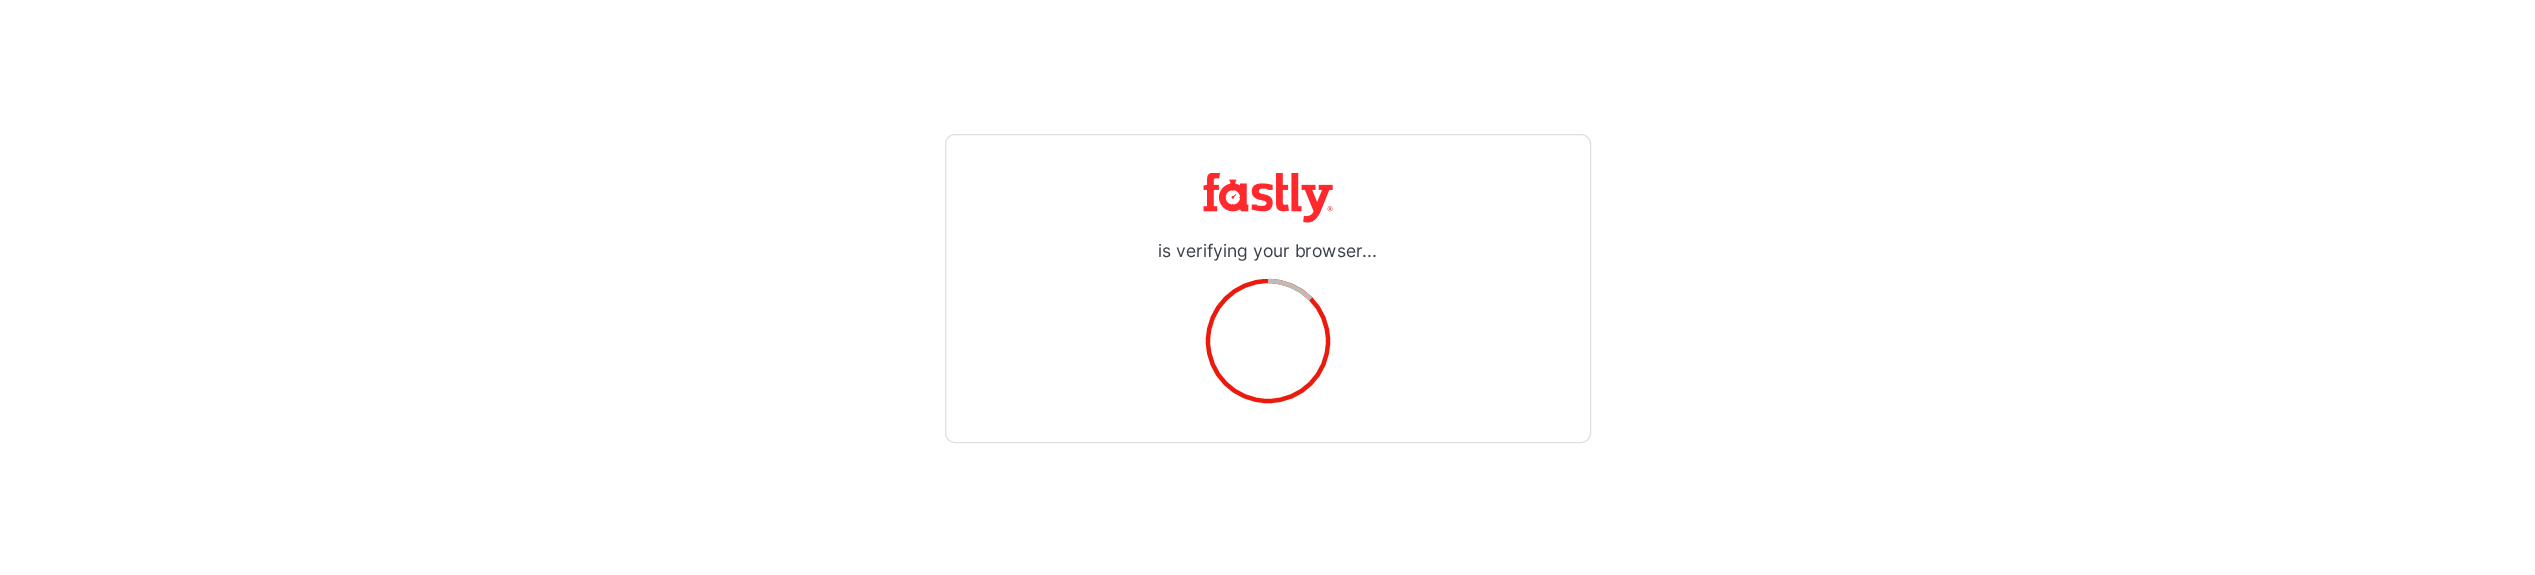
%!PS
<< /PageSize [2535 575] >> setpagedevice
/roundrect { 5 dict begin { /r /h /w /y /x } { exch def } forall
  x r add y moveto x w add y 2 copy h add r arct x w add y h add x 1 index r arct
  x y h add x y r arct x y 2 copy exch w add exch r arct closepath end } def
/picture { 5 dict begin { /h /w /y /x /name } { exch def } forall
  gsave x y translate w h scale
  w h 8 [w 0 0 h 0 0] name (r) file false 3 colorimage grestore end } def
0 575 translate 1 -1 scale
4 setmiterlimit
1 setgray
0 0 2535 575 rectfill
0.863 0.878 0.894 setrgbcolor
945.5 134.5 645 308 9.5 roundrect stroke
(img1.rgb) 1203 173 130 50 picture
/Inter-Regular [17.5 0 0 -17.5 0 0] selectfont
0.227 0.259 0.29 setrgbcolor
1158 257 moveto (is verifying your browser...) show
gsave
984 279 569 125 rectclip
0.922 0.102 0.047 setrgbcolor
4.2 setlinewidth
newpath 1208 341 moveto 1208 308 1235 281 1268 281 curveto 1301.5 281 1328 308 1328 341 curveto 1328 374.5 1301.5 401 1268 401 curveto 1235 401 1208 374.5 1208 341 curveto closepath stroke
grestore
0.761 0.729 0.71 setrgbcolor
4.2 setlinewidth
newpath 1310.5 299 moveto 1299.5 287.5 1284 281 1268 281 curveto stroke
showpage
